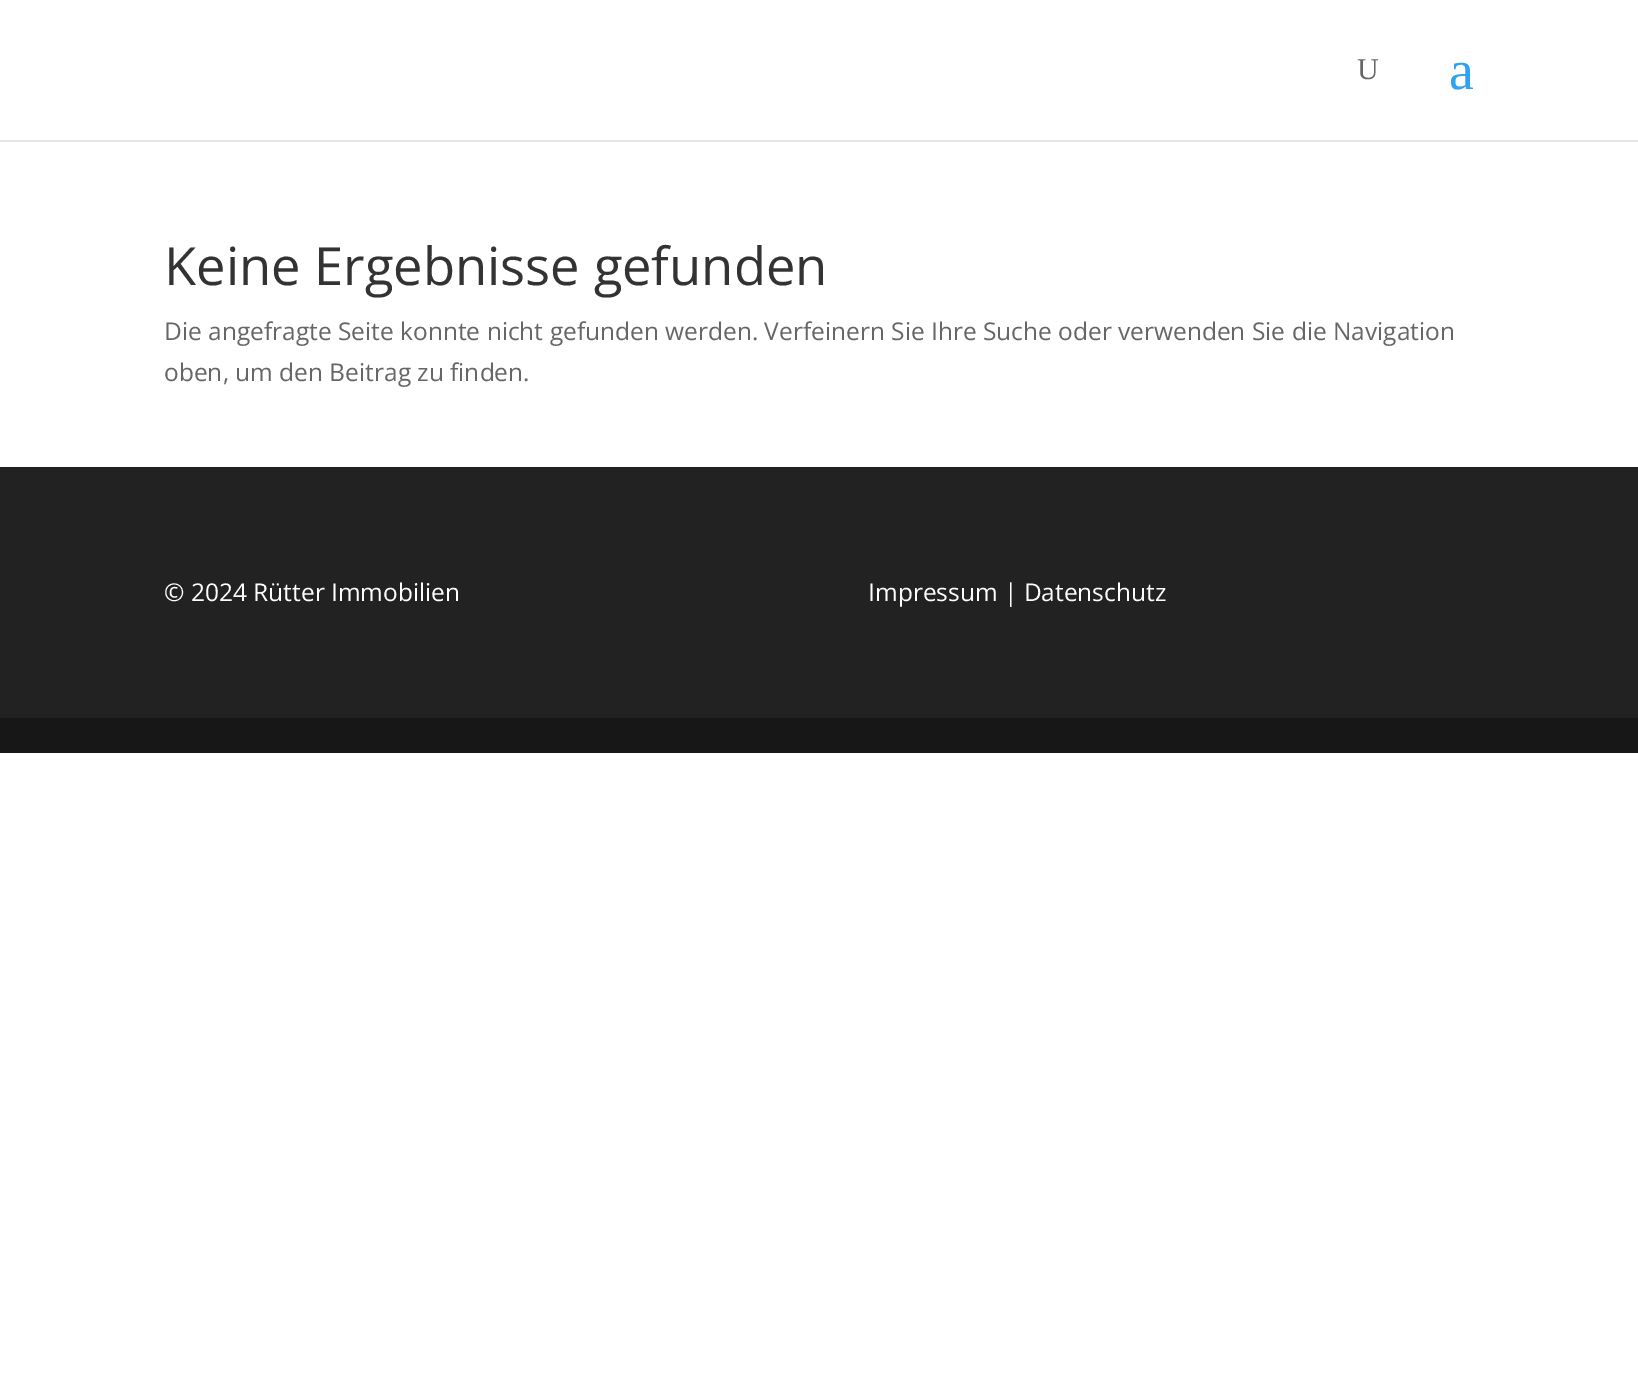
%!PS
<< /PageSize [1638 1379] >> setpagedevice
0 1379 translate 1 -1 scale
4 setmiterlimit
1 setgray
0 0 1638 1379 rectfill
0.902 setgray
0 140 1638 2 rectfill
/LiberationSerif-Regular [30 0 0 -30 0 0] selectfont
0.4 setgray
1357 79 moveto (U) show
/LiberationSerif-Regular [56 0 0 -56 0 0] selectfont
0.18 0.639 0.949 setrgbcolor
1449 89 moveto (a) show
/OpenSans-Regular [52.5 0 0 -52.5 0 0] selectfont
0.2 setgray
164 285 moveto (Keine Ergebnisse gefunden) show
/OpenSans-Regular [24.5 0 0 -24.5 0 0] selectfont
0.4 setgray
164 340 moveto (Die angefragte Seite konnte nicht gefunden werden. Verfeinern Sie Ihre Suche oder verwenden Sie die Navigation) show
164 381 moveto (oben, um den Beitrag zu finden.) show
0.133 setgray
0 467 1638 251 rectfill
1 setgray
164 601 moveto (© 2024 Rütter Immobilien) show
868 601 moveto (Impressum | Datenschutz) show
0.09 setgray
0 718 1638 35 rectfill
showpage
